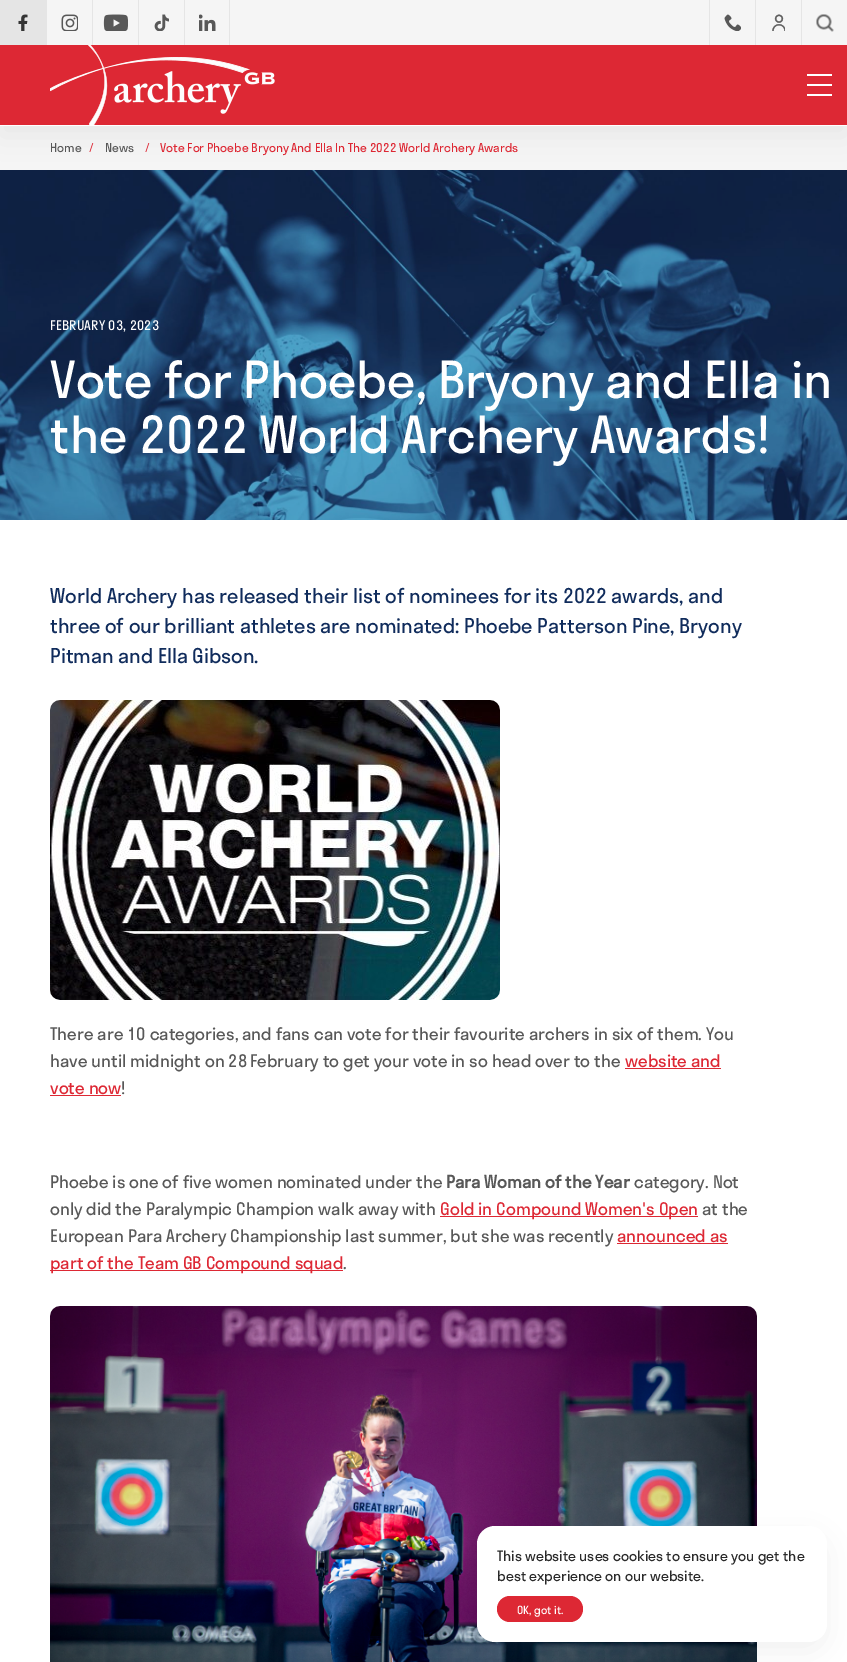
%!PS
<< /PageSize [847 1662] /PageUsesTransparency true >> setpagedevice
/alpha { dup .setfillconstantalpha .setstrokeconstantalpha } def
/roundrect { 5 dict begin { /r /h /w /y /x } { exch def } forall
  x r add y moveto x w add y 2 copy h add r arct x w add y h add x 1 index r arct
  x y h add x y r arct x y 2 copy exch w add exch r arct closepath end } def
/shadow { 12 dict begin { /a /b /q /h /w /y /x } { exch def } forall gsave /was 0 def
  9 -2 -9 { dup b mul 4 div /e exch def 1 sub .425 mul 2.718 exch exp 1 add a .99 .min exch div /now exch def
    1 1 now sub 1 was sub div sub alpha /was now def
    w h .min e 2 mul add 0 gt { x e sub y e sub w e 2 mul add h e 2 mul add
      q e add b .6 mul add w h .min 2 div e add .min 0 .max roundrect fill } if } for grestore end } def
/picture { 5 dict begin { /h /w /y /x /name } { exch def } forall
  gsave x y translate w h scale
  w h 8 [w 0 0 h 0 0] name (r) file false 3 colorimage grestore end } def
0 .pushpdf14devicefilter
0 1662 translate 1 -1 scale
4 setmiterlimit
1 setgray
0 0 847 1662 rectfill
0.961 setgray
0 126 847 44 rectfill
(img10.rgb) 0 170 847 350 picture
0 setgray
0 10 847 126 0 15 0.05 shadow
0.867 0.157 0.204 setrgbcolor
0 45 847 80 rectfill
1 setgray
0 125 847 1 rectfill
0.961 setgray
47 0 800 45 rectfill
0.898 setgray
0 0 47 45 rectfill
(img1.rgb) 18 14 10 17 picture
(img2.rgb) 61 14 17 17 picture
92 0 1 45 rectfill
(img3.rgb) 103 14 25 17 picture
138 0 1 45 rectfill
(img4.rgb) 154 14 15 17 picture
229 0 1 45 rectfill
184 0 1 45 rectfill
(img5.rgb) 199 14 17 17 picture
709 0 1 45 rectfill
(img6.rgb) 724 14 17 17 picture
755 0 1 45 rectfill
(img7.rgb) 772 14 13 17 picture
801 0 1 45 rectfill
(img8.rgb) 816 14 18 18 picture
(img9.rgb) 50 45 225 80 picture
1 setgray
807 74 25 2 rectfill
807 84 25 2 rectfill
807 94 25 2 rectfill
/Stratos-Regular [12 0 0 -12 0 0] selectfont
0.345 setgray
50 152 moveto (Home) show
0.867 0.157 0.204 setrgbcolor
89 152 moveto (/) show
0.345 setgray
105 152 moveto (News) show
0.867 0.157 0.204 setrgbcolor
145 152 moveto (/) show
160 152 moveto (Vote For Phoebe Bryony And Ella In The 2022 World Archery Awards) show
/Stratos-Regular [13 0 0 -13 0 0] selectfont
1 setgray
50 330 moveto 0.25 0 (FEBRUARY 03, 2023) ashow
/Stratos-Regular [50 0 0 -50 0 0] selectfont
50 398 moveto (Vote for Phoebe, Bryony and Ella in) show
50 453 moveto (the 2022 World Archery Awards!) show
/Stratos-Regular [20 0 0 -20 0 0] selectfont
0.063 0.173 0.361 setrgbcolor
50 603 moveto (World Archery has released their list of nominees for its 2022 awards, and) show
50 633 moveto (three of our brilliant athletes are nominated: Phoebe Patterson Pine, Bryony) show
50 663 moveto (Pitman and Ella Gibson.) show
(img11.rgb) 50 700 450 300 picture
/Stratos-Regular [17 0 0 -17 0 0] selectfont
0.345 setgray
50 1040 moveto (There are 10 categories, and fans can vote for their favourite archers in six of them. You) show
50 1067 moveto (have until midnight on 28) show
250 1067 moveto (February to get your vote in so head over to the) show
0.867 0.157 0.204 setrgbcolor
625 1067 moveto (website and) show
625 1068 96 1 rectfill
50 1094 moveto (vote now) show
50 1095 71 1 rectfill
0.345 setgray
121 1094 moveto (!) show
50 1188 moveto (Phoebe is one of five women nominated under the) show
/Stratos-Bold [17 0 0 -17 0 0] selectfont
446 1188 moveto (Para Woman of the Year) show
/Stratos-Regular [17 0 0 -17 0 0] selectfont
634 1188 moveto (category. Not) show
50 1215 moveto (only did the Paralympic Champion walk away with) show
0.867 0.157 0.204 setrgbcolor
440 1216 258 1 rectfill
440 1215 moveto (Gold in Compound Women's Open) show
0.345 setgray
702 1215 moveto (at the) show
50 1242 moveto (European Para Archery Championship last summer, but she was recently) show
0.867 0.157 0.204 setrgbcolor
617 1242 moveto (announced as) show
617 1243 111 1 rectfill
50 1270 293 1 rectfill
50 1269 moveto (part of the Team GB Compound squad) show
0.345 setgray
343 1269 moveto (.) show
(img12.rgb) 50 1306 707 356 picture
0 setgray
477 1536 350 116 18 15 0.05 shadow
1 setgray
477 1526 350 116 18 roundrect fill
/Stratos-Regular [14 0 0 -14 0 0] selectfont
0.161 setgray
497 1561 moveto (This website uses cookies to ensure you get the) show
497 1581 moveto (best experience on our website.) show
0.867 0.157 0.204 setrgbcolor
497 1596 86 26 13 roundrect fill
/Stratos-Regular [11 0 0 -11 0 0] selectfont
1 setgray
517 1614 moveto (OK, got it.) show
.poppdf14devicefilter showpage
